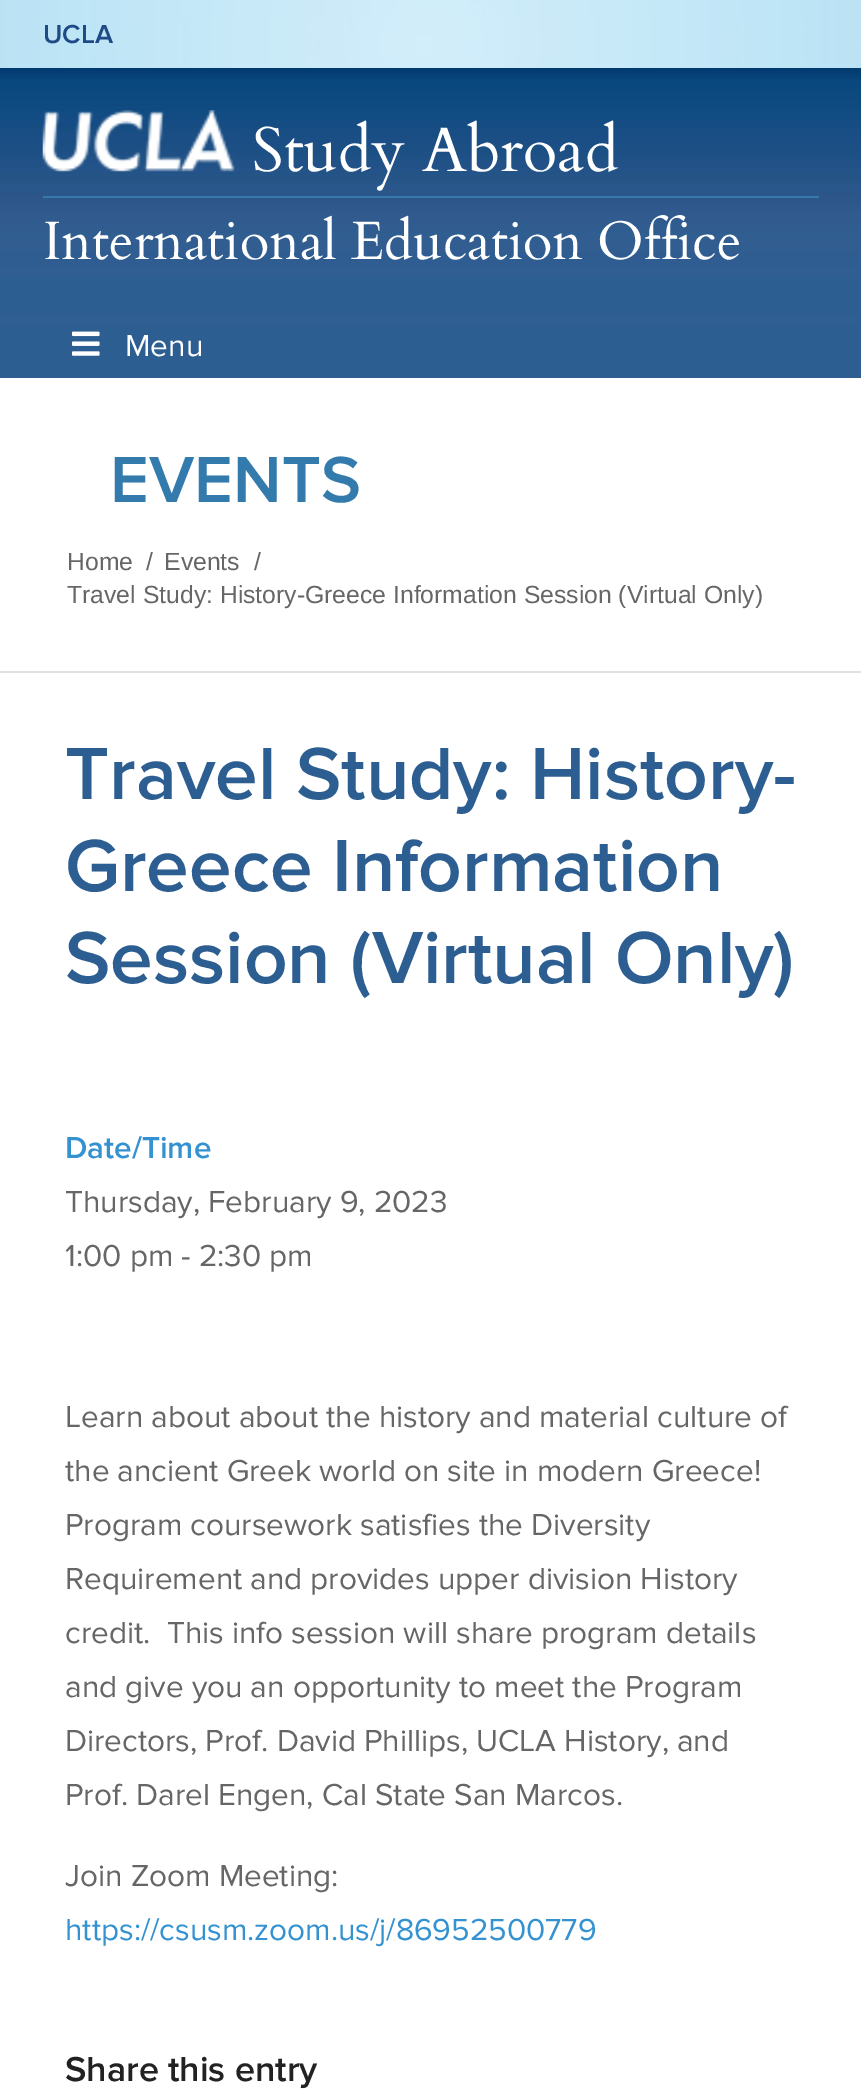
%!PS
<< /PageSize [861 2091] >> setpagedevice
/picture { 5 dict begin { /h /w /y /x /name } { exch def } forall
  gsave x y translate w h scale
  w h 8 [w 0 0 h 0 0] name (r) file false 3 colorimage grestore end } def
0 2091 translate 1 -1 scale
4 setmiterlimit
1 setgray
0 0 861 2091 rectfill
(img1.rgb) 0 0 861 68 picture
0.173 0.369 0.569 setrgbcolor
0 313 861 2 rectfill
/ProximaNova-SemiBold [27 0 0 -27 0 0] selectfont
0.118 0.294 0.529 setrgbcolor
43 43 moveto (UCLA) show
gsave newpath 0 68 moveto 861 68 lineto 861 313 lineto 0 313 lineto closepath clip newpath
<< /ShadingType 2 /ColorSpace /DeviceRGB /Coords [431 67 431 313] /Extend [true true] /Function << /FunctionType 3 /Domain [0 1] /Functions [<< /FunctionType 2 /Domain [0 1] /C0 [0.008 0.227 0.427] /C1 [0.008 0.231 0.439] /N 1 >> << /FunctionType 2 /Domain [0 1] /C0 [0.008 0.231 0.439] /C1 [0.02 0.255 0.467] /N 1 >> << /FunctionType 2 /Domain [0 1] /C0 [0.02 0.255 0.467] /C1 [0.035 0.282 0.494] /N 1 >> << /FunctionType 2 /Domain [0 1] /C0 [0.035 0.282 0.494] /C1 [0.063 0.298 0.51] /N 1 >> << /FunctionType 2 /Domain [0 1] /C0 [0.063 0.298 0.51] /C1 [0.082 0.298 0.518] /N 1 >> << /FunctionType 2 /Domain [0 1] /C0 [0.082 0.298 0.518] /C1 [0.082 0.298 0.51] /N 1 >> << /FunctionType 2 /Domain [0 1] /C0 [0.082 0.298 0.51] /C1 [0.098 0.306 0.518] /N 1 >> << /FunctionType 2 /Domain [0 1] /C0 [0.098 0.306 0.518] /C1 [0.11 0.31 0.518] /N 1 >> << /FunctionType 2 /Domain [0 1] /C0 [0.11 0.31 0.518] /C1 [0.141 0.325 0.537] /N 1 >> << /FunctionType 2 /Domain [0 1] /C0 [0.141 0.325 0.537] /C1 [0.149 0.329 0.525] /N 1 >> << /FunctionType 2 /Domain [0 1] /C0 [0.149 0.329 0.525] /C1 [0.161 0.341 0.545] /N 1 >> << /FunctionType 2 /Domain [0 1] /C0 [0.161 0.341 0.545] /C1 [0.176 0.337 0.541] /N 1 >> << /FunctionType 2 /Domain [0 1] /C0 [0.176 0.337 0.541] /C1 [0.192 0.353 0.557] /N 1 >> << /FunctionType 2 /Domain [0 1] /C0 [0.192 0.353 0.557] /C1 [0.188 0.369 0.565] /N 1 >> << /FunctionType 2 /Domain [0 1] /C0 [0.188 0.369 0.565] /C1 [0.196 0.365 0.565] /N 1 >> << /FunctionType 2 /Domain [0 1] /C0 [0.196 0.365 0.565] /C1 [0.184 0.369 0.573] /N 1 >> << /FunctionType 2 /Domain [0 1] /C0 [0.173 0.369 0.569] /C1 [0.173 0.369 0.569] /N 1 >>] /Bounds [0.01 0.03 0.06 0.18 0.22 0.24 0.26 0.33 0.42 0.45 0.48 0.53 0.6 0.68 0.71 0.86] /Encode [0 1 0 1 0 1 0 1 0 1 0 1 0 1 0 1 0 1 0 1 0 1 0 1 0 1 0 1 0 1 0 1 0 1] >> >> shfill grestore
0.204 0.482 0.678 setrgbcolor
43 196 776 2 rectfill
(img2.rgb) 42 110 193 62 picture
/Cardo-Regular [63 0 0 -63 0 0] selectfont
1 setgray
252 171 moveto (Study Abroad) show
/Cardo-Regular [54 0 0 -54 0 0] selectfont
43 259 moveto (International Education Office) show
gsave newpath 0 315 moveto 861 315 lineto 861 378 lineto 0 378 lineto closepath clip newpath
<< /ShadingType 2 /ColorSpace /DeviceRGB /Coords [431 0 431 378] /Extend [true true] /Function << /FunctionType 3 /Domain [0 1] /Functions [<< /FunctionType 2 /Domain [0 1] /C0 [0.008 0.227 0.427] /C1 [0.008 0.231 0.439] /N 1 >> << /FunctionType 2 /Domain [0 1] /C0 [0.008 0.231 0.439] /C1 [0.02 0.255 0.467] /N 1 >> << /FunctionType 2 /Domain [0 1] /C0 [0.02 0.255 0.467] /C1 [0.035 0.282 0.494] /N 1 >> << /FunctionType 2 /Domain [0 1] /C0 [0.035 0.282 0.494] /C1 [0.063 0.298 0.51] /N 1 >> << /FunctionType 2 /Domain [0 1] /C0 [0.063 0.298 0.51] /C1 [0.082 0.298 0.518] /N 1 >> << /FunctionType 2 /Domain [0 1] /C0 [0.082 0.298 0.518] /C1 [0.082 0.298 0.51] /N 1 >> << /FunctionType 2 /Domain [0 1] /C0 [0.082 0.298 0.51] /C1 [0.098 0.306 0.518] /N 1 >> << /FunctionType 2 /Domain [0 1] /C0 [0.098 0.306 0.518] /C1 [0.11 0.31 0.518] /N 1 >> << /FunctionType 2 /Domain [0 1] /C0 [0.11 0.31 0.518] /C1 [0.141 0.325 0.537] /N 1 >> << /FunctionType 2 /Domain [0 1] /C0 [0.141 0.325 0.537] /C1 [0.149 0.329 0.525] /N 1 >> << /FunctionType 2 /Domain [0 1] /C0 [0.149 0.329 0.525] /C1 [0.161 0.341 0.545] /N 1 >> << /FunctionType 2 /Domain [0 1] /C0 [0.161 0.341 0.545] /C1 [0.176 0.337 0.541] /N 1 >> << /FunctionType 2 /Domain [0 1] /C0 [0.176 0.337 0.541] /C1 [0.192 0.353 0.557] /N 1 >> << /FunctionType 2 /Domain [0 1] /C0 [0.192 0.353 0.557] /C1 [0.188 0.369 0.565] /N 1 >> << /FunctionType 2 /Domain [0 1] /C0 [0.188 0.369 0.565] /C1 [0.196 0.365 0.565] /N 1 >> << /FunctionType 2 /Domain [0 1] /C0 [0.196 0.365 0.565] /C1 [0.184 0.369 0.573] /N 1 >> << /FunctionType 2 /Domain [0 1] /C0 [0.173 0.369 0.569] /C1 [0.173 0.369 0.569] /N 1 >>] /Bounds [0.01 0.03 0.06 0.18 0.22 0.24 0.26 0.33 0.42 0.45 0.48 0.53 0.6 0.68 0.71 0.86] /Encode [0 1 0 1 0 1 0 1 0 1 0 1 0 1 0 1 0 1 0 1 0 1 0 1 0 1 0 1 0 1 0 1 0 1] >> >> shfill grestore
(img3.rgb) 72 331 28 25 picture
/ProximaNova-Regular [31.5 0 0 -31.5 0 0] selectfont
125 356 moveto (Menu) show
/ProximaNova-SemiBold [67.5 0 0 -67.5 0 0] selectfont
0.204 0.482 0.678 setrgbcolor
110 502 moveto (EVENTS) show
/LiberationSans-Regular [24.75 0 0 -24.75 0 0] selectfont
0.4 setgray
67 570 moveto (Home) show
146 570 moveto (/) show
164 570 moveto (Events) show
254 570 moveto (/) show
67 603 moveto (Travel Study: History-Greece Information Session \(Virtual Only\)) show
0.882 setgray
0 671 861 2 rectfill
/ProximaNova-SemiBold [76.5 0 0 -76.5 0 0] selectfont
0.173 0.369 0.569 setrgbcolor
65 799 moveto (Travel Study: History-) show
65 891 moveto (Greece Information) show
65 983 moveto (Session \(Virtual Only\)) show
/ProximaNova-SemiBold [31.5 0 0 -31.5 0 0] selectfont
0.204 0.573 0.82 setrgbcolor
65 1158 moveto (Date/Time) show
/ProximaNova-Regular [31.5 0 0 -31.5 0 0] selectfont
0.4 setgray
65 1212 moveto (Thursday, February 9, 2023) show
65 1266 moveto (1:00 pm - 2:30 pm) show
65 1427 moveto (Learn about about the history and material culture of) show
65 1481 moveto (the ancient Greek world on site in modern Greece!) show
65 1535 moveto (Program coursework satisfies the Diversity) show
65 1589 moveto (Requirement and provides upper division History) show
65 1643 moveto (credit.  This info session will share program details) show
65 1697 moveto (and give you an opportunity to meet the Program) show
65 1751 moveto (Directors, Prof. David Phillips, UCLA History, and) show
65 1805 moveto (Prof. Darel Engen, Cal State San Marcos.) show
65 1886 moveto (Join Zoom Meeting:) show
0.204 0.573 0.82 setrgbcolor
65 1940 moveto (https://csusm.zoom.us/j/86952500779) show
/ProximaNova-SemiBold [36 0 0 -36 0 0] selectfont
0.133 setgray
65 2081 moveto (Share this entry) show
showpage
